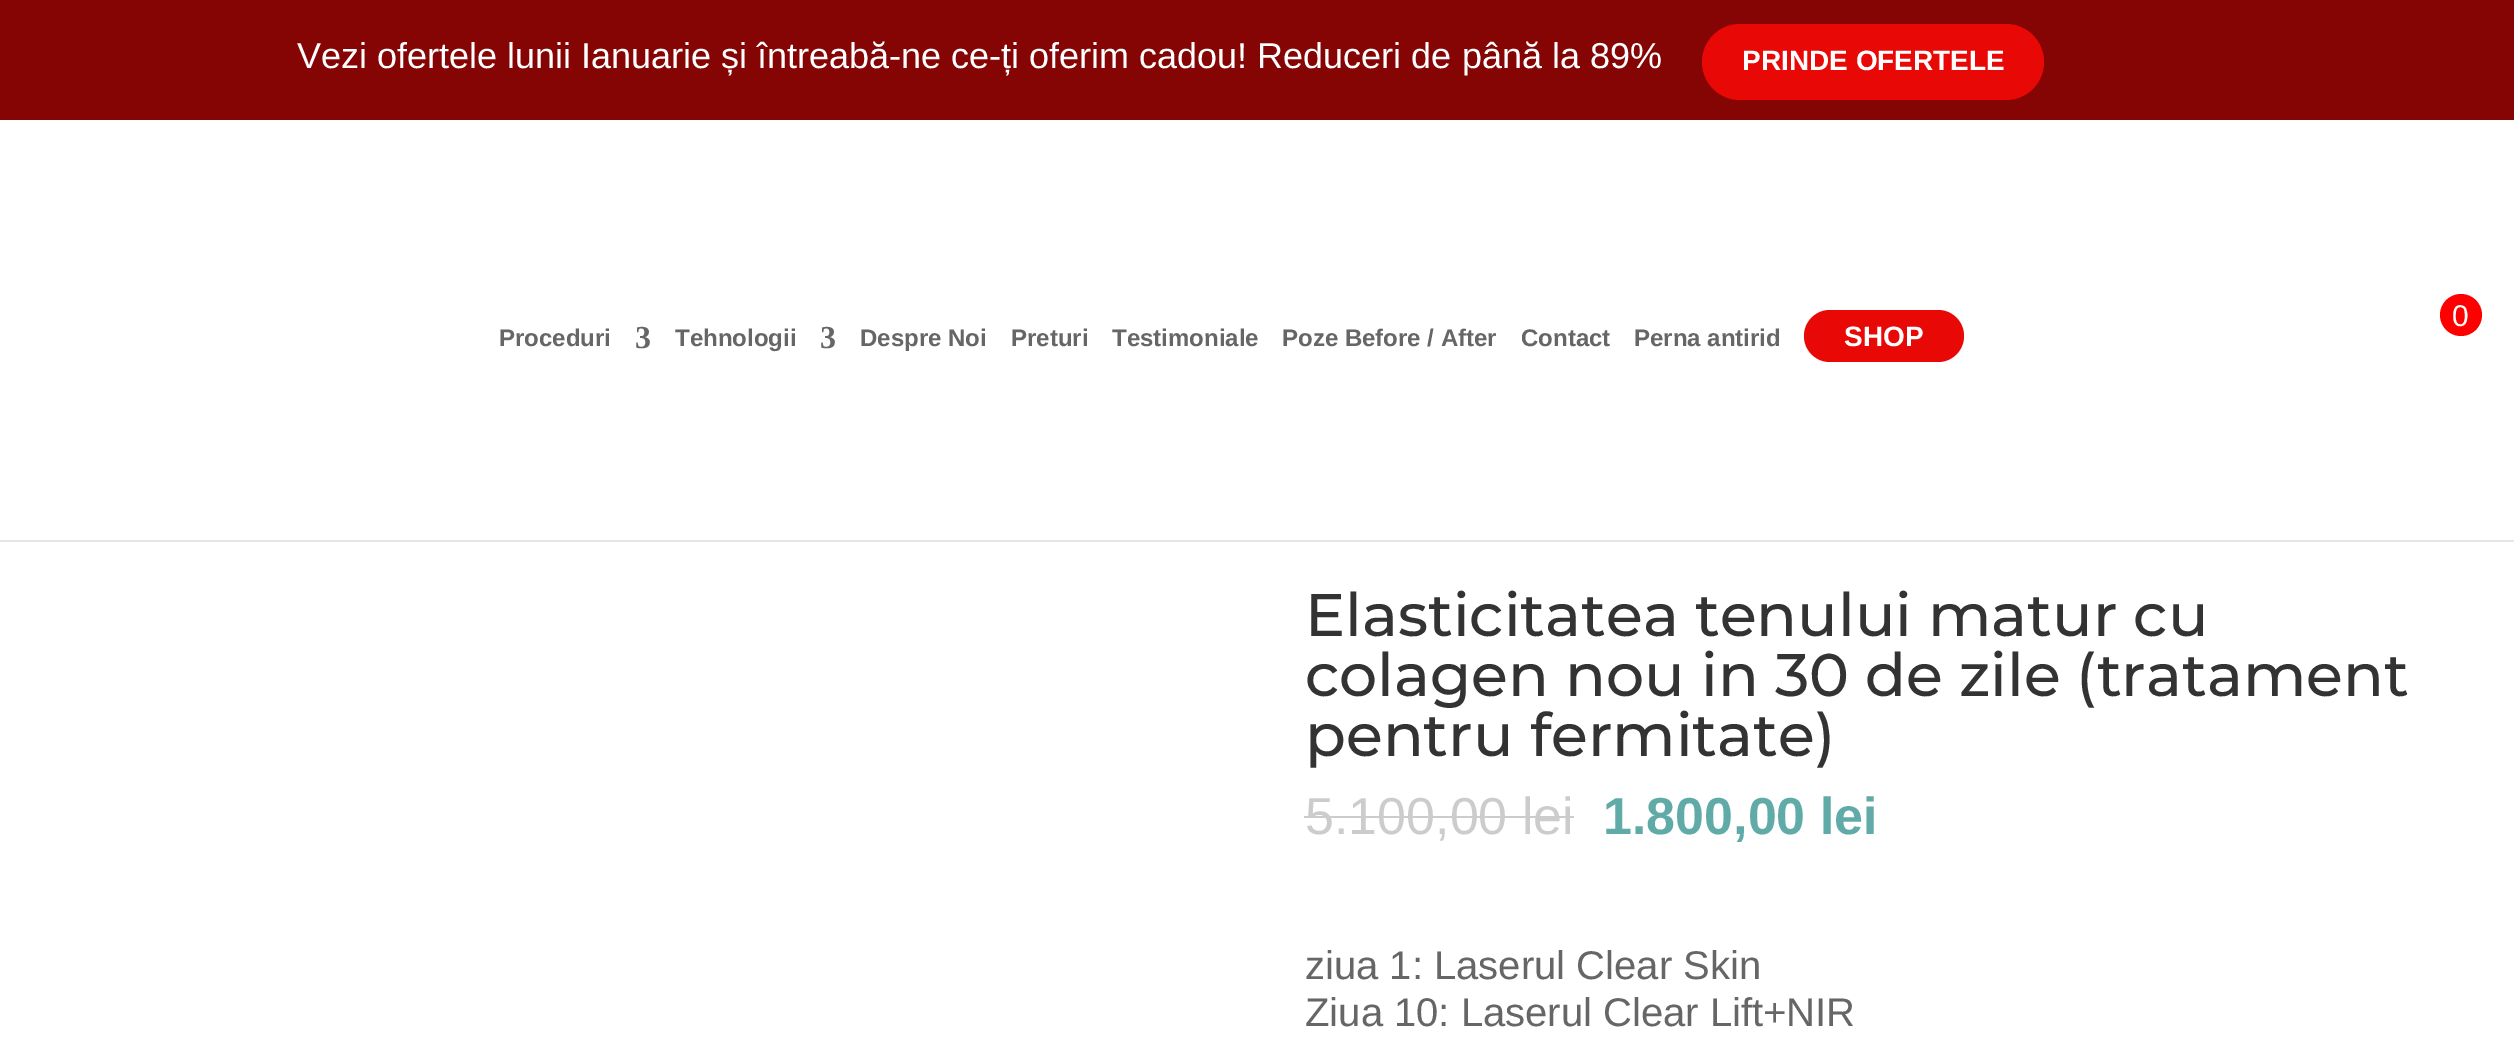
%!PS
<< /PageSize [2514 1053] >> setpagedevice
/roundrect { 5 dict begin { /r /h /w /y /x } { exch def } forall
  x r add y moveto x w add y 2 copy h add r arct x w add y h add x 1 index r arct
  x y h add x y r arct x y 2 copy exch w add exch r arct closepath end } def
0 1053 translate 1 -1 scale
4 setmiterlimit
1 setgray
0 0 2514 1053 rectfill
0.522 0.02 0.016 setrgbcolor
0 0 2514 120 rectfill
/Arimo-Regular [36 0 0 -36 0 0] selectfont
1 setgray
297 68 moveto (Vezi ofertele lunii Ianuarie și întreabă-ne ce-ți oferim cadou! Reduceri de până la 89%) show
0.91 0.031 0.024 setrgbcolor
1702 24 342 76 38 roundrect fill
/Arimo-Bold [28 0 0 -28 0 0] selectfont
1 setgray
1742 70 moveto (PRINDE OFERTELE) show
0.902 setgray
0 540 2514 2 rectfill
1 0 0 setrgbcolor
newpath 2461 315 21 0 360 arc closepath fill
/Arimo-Regular [30 0 0 -30 0 0] selectfont
1 setgray
2452 326 moveto (0) show
/Arimo-Bold [24 0 0 -24 0 0] selectfont
0.4 setgray
499 346 moveto (Proceduri) show
/LiberationSerif-Bold [32 0 0 -32 0 0] selectfont
635 348 moveto (3) show
/Arimo-Bold [24 0 0 -24 0 0] selectfont
675 346 moveto (Tehnologii) show
/LiberationSerif-Bold [32 0 0 -32 0 0] selectfont
820 348 moveto (3) show
/Arimo-Bold [24 0 0 -24 0 0] selectfont
860 346 moveto (Despre Noi) show
1011 346 moveto (Preturi) show
1112 346 moveto (Testimoniale) show
1282 346 moveto (Poze Before / After) show
1521 346 moveto (Contact) show
1634 346 moveto (Perna antirid) show
0.91 0.031 0.024 setrgbcolor
1804 310 160 52 26 roundrect fill
/Arimo-Bold [28 0 0 -28 0 0] selectfont
1 setgray
1844 346 moveto (SHOP) show
/Montserrat-Medium [60 0 0 -60 0 0] selectfont
0.2 setgray
1305 636 moveto (Elasticitatea tenului matur cu) show
1305 696 moveto (colagen nou in 30 de zile \(tratament) show
1305 756 moveto (pentru fermitate\)) show
/Arimo-Regular [52 0 0 -52 0 0] selectfont
0.8 setgray
1305 834 moveto (5.100,00 lei) show
1304 816 270 2 rectfill
/Arimo-Bold [52 0 0 -52 0 0] selectfont
0.376 0.671 0.655 setrgbcolor
1603 834 moveto (1.800,00 lei) show
/Arimo-Regular [40 0 0 -40 0 0] selectfont
0.4 setgray
1305 979 moveto (ziua 1: Laserul Clear Skin) show
1305 1026 moveto (Ziua 10: Laserul Clear Lift+NIR) show
showpage
